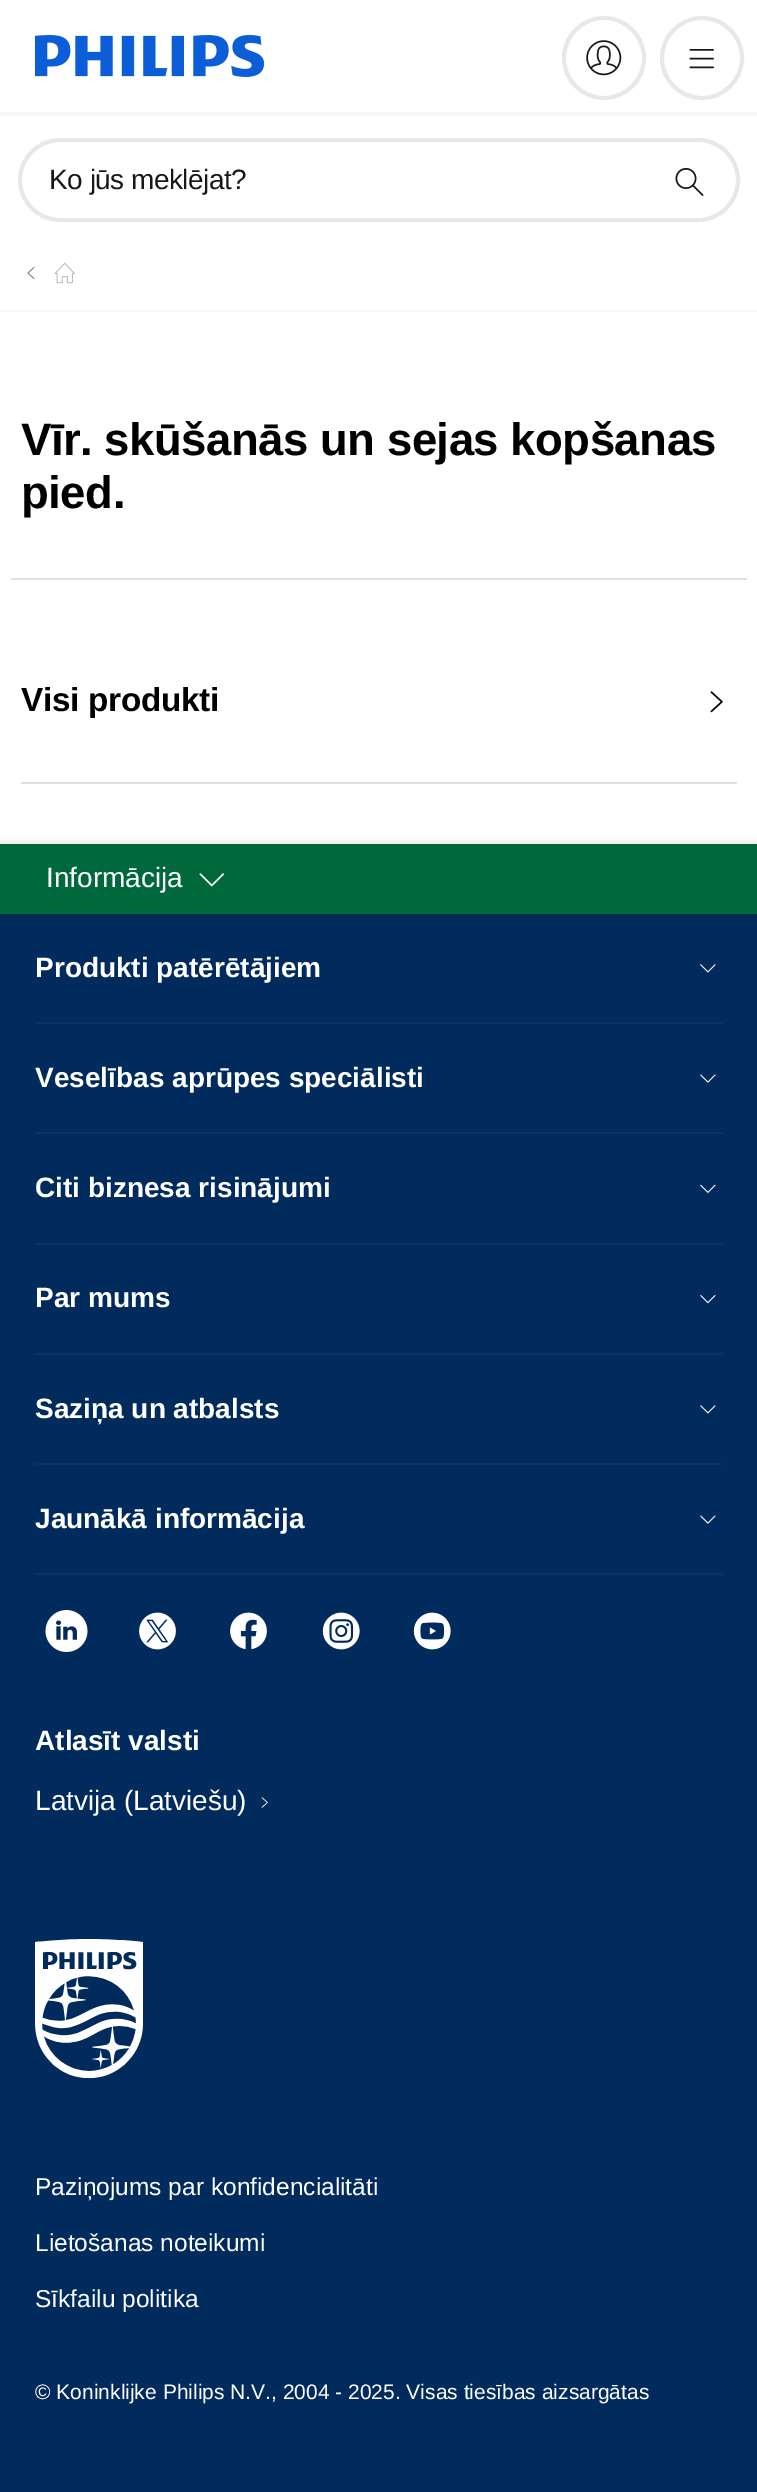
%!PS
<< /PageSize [757 2492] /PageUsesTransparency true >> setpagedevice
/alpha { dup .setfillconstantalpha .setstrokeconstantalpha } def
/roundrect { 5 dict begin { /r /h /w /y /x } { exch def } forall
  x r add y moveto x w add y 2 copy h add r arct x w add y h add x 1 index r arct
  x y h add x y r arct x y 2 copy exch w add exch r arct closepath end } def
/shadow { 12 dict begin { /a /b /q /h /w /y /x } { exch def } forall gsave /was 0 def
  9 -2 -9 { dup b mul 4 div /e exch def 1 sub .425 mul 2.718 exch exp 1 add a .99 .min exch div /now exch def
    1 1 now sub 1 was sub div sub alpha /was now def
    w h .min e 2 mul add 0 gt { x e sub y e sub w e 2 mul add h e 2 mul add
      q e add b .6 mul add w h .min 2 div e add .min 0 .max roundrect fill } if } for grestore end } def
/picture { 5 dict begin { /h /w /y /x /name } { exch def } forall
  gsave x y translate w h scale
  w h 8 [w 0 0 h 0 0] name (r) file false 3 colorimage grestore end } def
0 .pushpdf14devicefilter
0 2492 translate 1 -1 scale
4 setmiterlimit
1 setgray
0 0 757 2492 rectfill
(img1.rgb) 35 35 229 42 picture
0.969 setgray
0 112 757 4 rectfill
0.91 setgray
4 setlinewidth
newpath 604 58 40 0 360 arc closepath stroke
(img2.rgb) 586 40 36 36 picture
newpath 702 58 40 0 360 arc closepath stroke
(img3.rgb) 689 49 25 20 picture
20 140 718 80 40 roundrect stroke
/LiberationSans-Regular [28 0 0 -28 0 0] selectfont
0.09 setgray
49 189 moveto -0.5 0 (Ko jūs meklējat?) ashow
(img4.rgb) 675 168 29 28 picture
0.969 setgray
0 310 757 2 rectfill
(img5.rgb) 27 267 8 13 picture
(img6.rgb) 54 262 21 22 picture
/LiberationSans-Bold [45.5 0 0 -45.5 0 0] selectfont
0 setgray
21 455 moveto -0.5 0 (Vīr. skūšanās un sejas kopšanas) ashow
21 508 moveto -0.5 0 (pied.) ashow
0.878 0.878 0.91 setrgbcolor
11 578 736 2 rectfill
0.878 setgray
21 782 716 2 rectfill
/LiberationSans-Bold [33.25 0 0 -33.25 0 0] selectfont
0 setgray
21 711 moveto -0.3 0 (Visi produkti) ashow
(img7.rgb) 710 691 13 22 picture
0 0.169 0.361 setrgbcolor
0 914 757 1578 rectfill
0 setgray
0 844 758 70 0 4.5 0.15 shadow
0 0.412 0.235 setrgbcolor
0 844 757 70 rectfill
/LiberationSans-Regular [28 0 0 -28 0 0] selectfont
1 setgray
46 887 moveto (Informācija) show
(img8.rgb) 199 873 25 14 picture
0.039 0.2 0.388 setrgbcolor
35 1022 688 2 rectfill
/LiberationSans-Bold [28 0 0 -28 0 0] selectfont
1 setgray
35 977 moveto (Produkti patērētājiem) show
(img9.rgb) 700 964 16 9 picture
0.039 0.2 0.388 setrgbcolor
35 1132 688 2 rectfill
1 setgray
35 1087 moveto (Veselības aprūpes speciālisti) show
(img10.rgb) 700 1074 16 9 picture
0.039 0.2 0.388 setrgbcolor
35 1243 688 2 rectfill
1 setgray
35 1197 moveto (Citi biznesa risinājumi) show
(img11.rgb) 700 1184 16 9 picture
0.039 0.2 0.388 setrgbcolor
35 1353 688 2 rectfill
1 setgray
35 1307 moveto (Par mums) show
(img12.rgb) 700 1295 16 9 picture
0.039 0.2 0.388 setrgbcolor
35 1463 688 2 rectfill
1 setgray
35 1418 moveto (Saziņa un atbalsts) show
(img9.rgb) 700 1405 16 9 picture
0.039 0.2 0.388 setrgbcolor
35 1573 688 2 rectfill
1 setgray
35 1528 moveto (Jaunākā informācija) show
(img10.rgb) 700 1515 16 9 picture
(img13.rgb) 45 1610 43 42 picture
(img14.rgb) 139 1612 37 38 picture
(img15.rgb) 230 1612 37 38 picture
(img16.rgb) 322 1612 38 38 picture
(img17.rgb) 413 1612 38 38 picture
35 1750 moveto (Atlasīt valsti) show
/LiberationSans-Regular [28 0 0 -28 0 0] selectfont
35 1810 moveto (Latvija \(Latviešu\)) show
(img18.rgb) 261 1797 7 11 picture
(img19.rgb) 35 1939 108 140 picture
/LiberationSans-Regular [24.5 0 0 -24.5 0 0] selectfont
35 2195 moveto (Paziņojums par konfidencialitāti) show
35 2251 moveto (Lietošanas noteikumi) show
35 2307 moveto (Sīkfailu politika) show
/LiberationSans-Regular [21 0 0 -21 0 0] selectfont
35 2399 moveto (© Koninklijke Philips N.V., 2004 - 2025. Visas tiesības aizsargātas) show
.poppdf14devicefilter showpage
